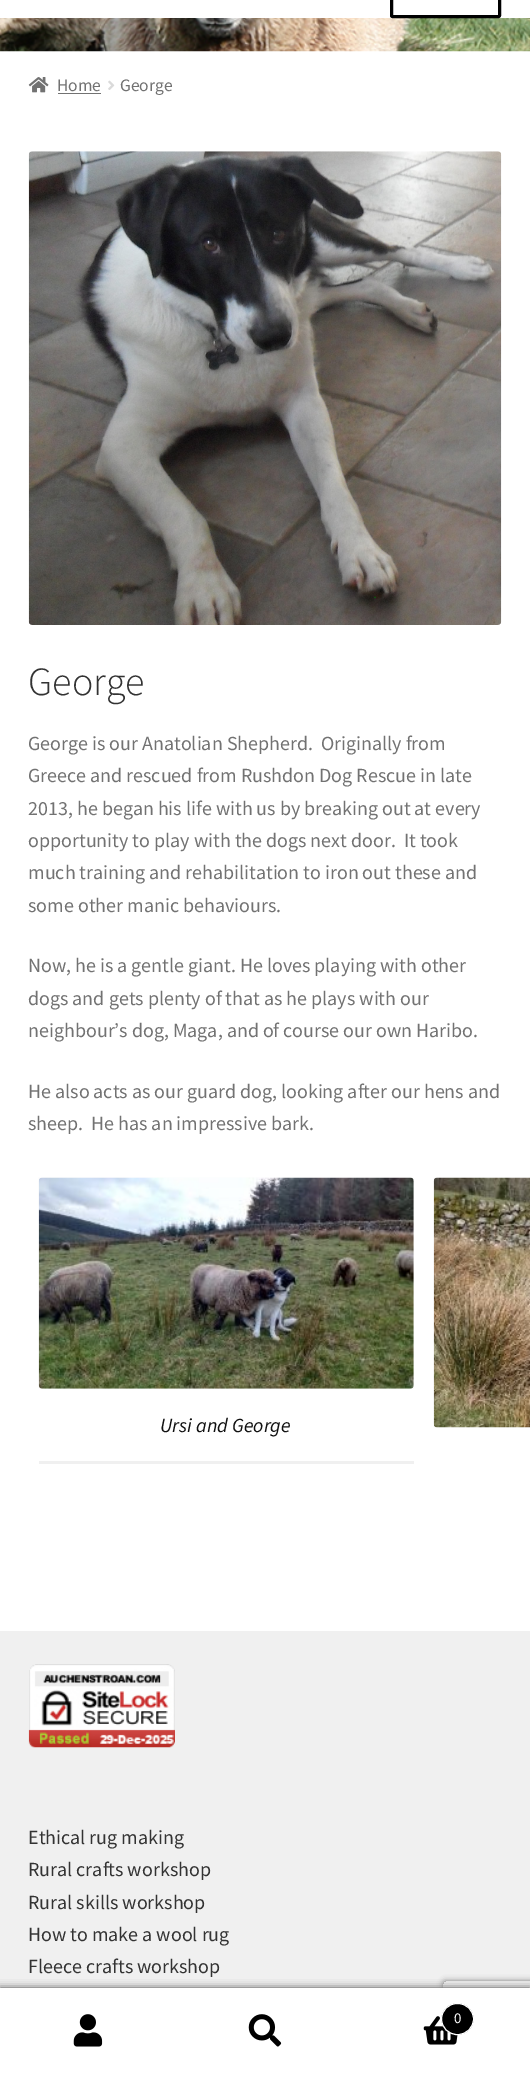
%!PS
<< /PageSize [530 2073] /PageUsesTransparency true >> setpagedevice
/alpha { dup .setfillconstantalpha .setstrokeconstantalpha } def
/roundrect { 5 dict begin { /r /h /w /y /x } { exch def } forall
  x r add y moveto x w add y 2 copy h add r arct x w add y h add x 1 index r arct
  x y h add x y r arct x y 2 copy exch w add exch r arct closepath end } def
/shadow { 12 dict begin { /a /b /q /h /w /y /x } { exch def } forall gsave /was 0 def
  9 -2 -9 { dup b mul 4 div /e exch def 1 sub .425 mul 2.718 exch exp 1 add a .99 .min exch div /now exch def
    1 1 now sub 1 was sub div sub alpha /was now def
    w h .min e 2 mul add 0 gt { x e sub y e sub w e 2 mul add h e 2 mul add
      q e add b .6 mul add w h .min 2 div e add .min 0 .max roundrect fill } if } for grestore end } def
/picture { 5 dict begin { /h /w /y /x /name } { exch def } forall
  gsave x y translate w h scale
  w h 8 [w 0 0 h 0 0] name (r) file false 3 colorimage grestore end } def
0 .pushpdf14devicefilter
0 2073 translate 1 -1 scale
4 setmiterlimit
1 setgray
0 0 530 2073 rectfill
(img1.rgb) 0 18 530 34 picture
0 setgray
3 setlinewidth
391.5 -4.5 108 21 1 roundrect stroke
(img2.rgb) 28 77 21 16 picture
/SourceSansPro-Regular [17.5 0 0 -17.5 0 0] selectfont
0.447 setgray
57 91 moveto (Home) show
58 93 43 1 rectfill
(img3.rgb) 108 80 7 10 picture
120 91 moveto (George) show
(img4.rgb) 28 151 474 474 picture
/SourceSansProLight-Light [40 0 0 -40 0 0] selectfont
0.2 setgray
28 695 moveto (George) show
/SourceSansPro-Regular [20 0 0 -20 0 0] selectfont
0.447 setgray
28 750 moveto (George is our Anatolian Shepherd.  Originally from) show
28 782 moveto (Greece and rescued from Rushdon Dog Rescue in late) show
28 815 moveto (2013, he began his life with us by breaking out at every) show
28 847 moveto (opportunity to play with the dogs next door.  It took) show
28 879 moveto (much training and rehabilitation to iron out these and) show
28 912 moveto (some other manic behaviours.) show
28 972 moveto (Now, he is a gentle giant. He loves playing with other) show
28 1005 moveto (dogs and gets plenty of that as he plays with our) show
28 1037 moveto (neighbour’s dog, Maga, and of course our own Haribo.) show
28 1098 moveto (He also acts as our guard dog, looking after our hens and) show
28 1130 moveto (sheep.  He has an impressive bark.) show
(img5.rgb) 38 1177 376 212 picture
0.941 setgray
39 1461 375 3 rectfill
/SourceSansPro-Italic [20 0 0 -20 0 0] selectfont
0.067 setgray
160 1432 moveto (Ursi and George) show
(img6.rgb) 433 1177 97 251 picture
0.941 setgray
0 1631 530 357 rectfill
(img7.rgb) 28 1664 147 84 picture
/SourceSansPro-Regular [20 0 0 -20 0 0] selectfont
0.2 setgray
28 1844 moveto (Ethical rug making) show
28 1876 moveto (Rural crafts workshop) show
28 1909 moveto (Rural skills workshop) show
28 1941 moveto (How to make a wool rug) show
28 1973 moveto (Fleece crafts workshop) show
0 setgray
0 1988 530 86 0 4 0.7 shadow
gsave
newpath 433 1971 moveto 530 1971 lineto 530 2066 lineto 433 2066 lineto closepath 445.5 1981 moveto 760.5 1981 lineto 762 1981 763 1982 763 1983.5 curveto 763 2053.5 lineto 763 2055 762 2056 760.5 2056 curveto 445.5 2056 lineto 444 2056 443 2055 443 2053.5 curveto 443 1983.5 lineto 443 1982 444 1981 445.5 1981 curveto closepath eoclip newpath
0.502 setgray
443 1981 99 75 2.5 3 1 shadow
grestore
1 setgray
0 1988 530 1 rectfill
0 1989 530 84 rectfill
(img8.rgb) 73 2014 30 33 picture
(img9.rgb) 248 2014 34 33 picture
(img10.rgb) 423 2016 35 29 picture
0 setgray
441.5 2003.5 32 31 15.5 roundrect gsave fill grestore
1 setgray
1 setlinewidth
stroke
/SourceSansPro-Regular [15 0 0 -15 0 0] selectfont
454 2023 moveto (0) show
.poppdf14devicefilter showpage
